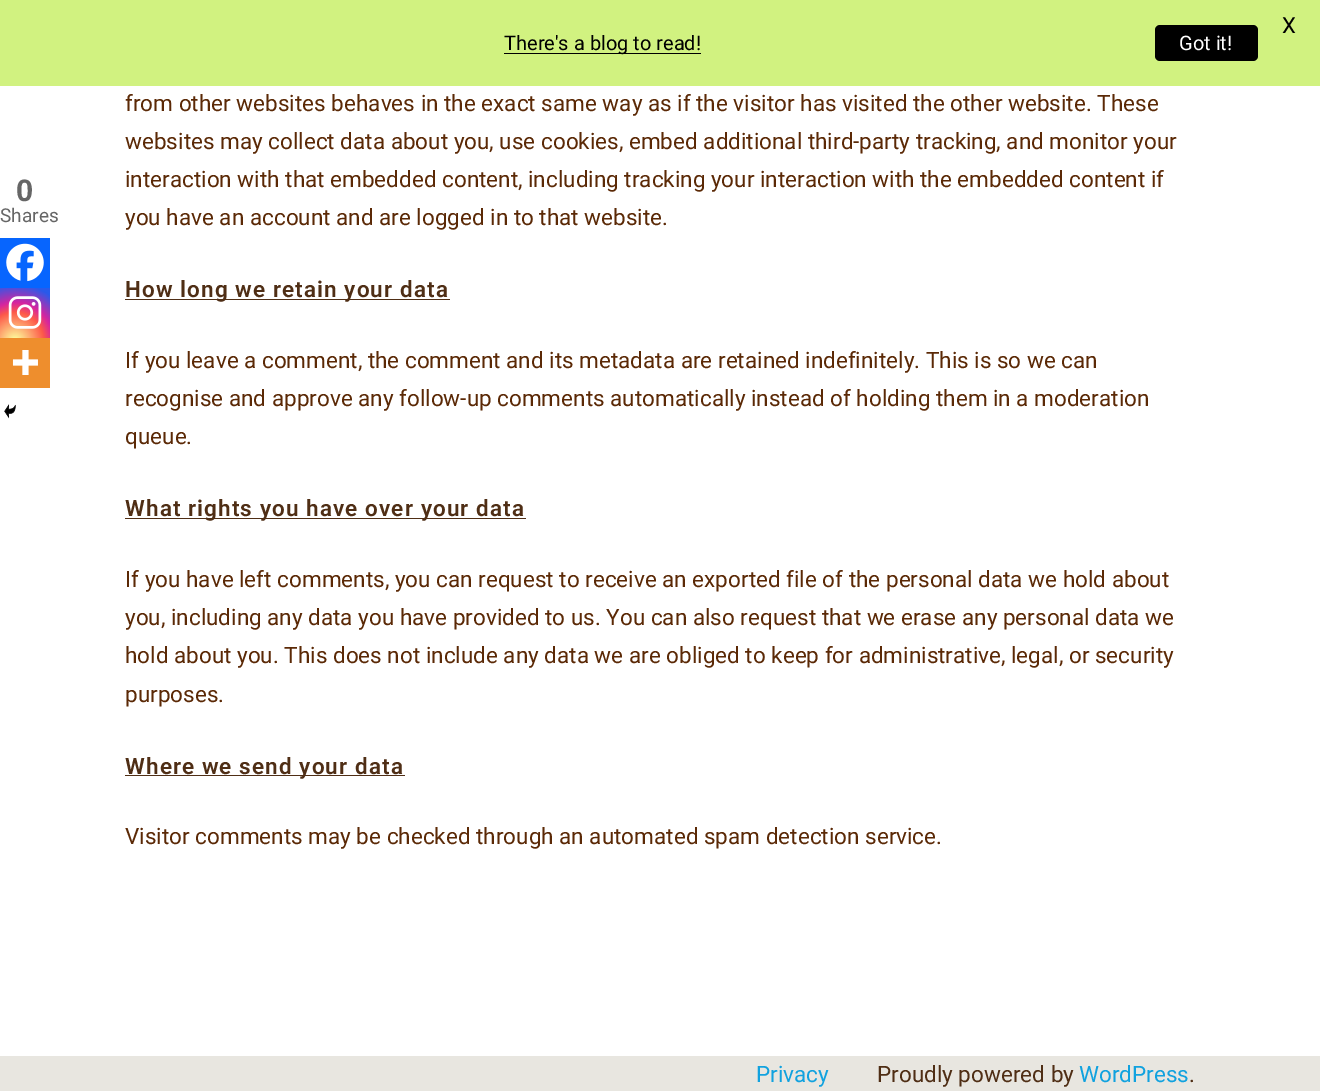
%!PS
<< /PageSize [1320 1091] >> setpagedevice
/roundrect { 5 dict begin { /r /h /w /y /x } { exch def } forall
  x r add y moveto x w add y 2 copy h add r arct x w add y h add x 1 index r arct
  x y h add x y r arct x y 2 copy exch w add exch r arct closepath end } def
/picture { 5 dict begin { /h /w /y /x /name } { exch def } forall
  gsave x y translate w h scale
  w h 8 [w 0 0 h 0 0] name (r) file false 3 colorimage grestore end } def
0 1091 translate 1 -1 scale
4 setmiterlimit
1 setgray
0 0 1320 1091 rectfill
0.82 0.949 0.502 setrgbcolor
0 0 1320 86 rectfill
/Roboto-Regular [22 0 0 -22 0 0] selectfont
0 setgray
1282 33 moveto (X) show
504 53 197 1 rectfill
/Roboto-Regular [20 0 0 -20 0 0] selectfont
504 50 moveto (There's a blog to read!) show
1155 25 103 36 5 roundrect fill
1 setgray
1179 50 moveto (Got it!) show
/LiberationSans-Bold [31 0 0 -31 0 0] selectfont
0.4 setgray
16 201 moveto (0) show
/Roboto-Regular [19 0 0 -19 0 0] selectfont
0 222 moveto (Shares) show
0.027 0.396 0.996 setrgbcolor
0 238 50 50 rectfill
(img1.rgb) 6 243 38 39 picture
gsave newpath 0 288 moveto 50 288 lineto 50 338 lineto 0 338 lineto closepath clip newpath 15 341 translate 64 64 scale
<< /ShadingType 3 /ColorSpace /DeviceRGB /Coords [0 0 0 0 0 1] /Extend [true true] /Function << /FunctionType 3 /Domain [0 1] /Functions [<< /FunctionType 2 /Domain [0 1] /C0 [0.992 0.957 0.592] /C1 [0.992 0.957 0.592] /N 1 >> << /FunctionType 2 /Domain [0 1] /C0 [0.992 0.957 0.592] /C1 [0.992 0.349 0.286] /N 1 >> << /FunctionType 2 /Domain [0 1] /C0 [0.992 0.349 0.286] /C1 [0.839 0.141 0.624] /N 1 >> << /FunctionType 2 /Domain [0 1] /C0 [0.839 0.141 0.624] /C1 [0.157 0.353 0.922] /N 1 >> << /FunctionType 2 /Domain [0 1] /C0 [0.157 0.353 0.922] /C1 [0.157 0.353 0.922] /N 1 >>] /Bounds [0.05 0.45 0.6 0.9] /Encode [0 1 0 1 0 1 0 1 0 1] >> >> shfill grestore
(img2.rgb) 8 296 34 33 picture
0.933 0.557 0.176 setrgbcolor
0 338 50 50 rectfill
(img3.rgb) 12 350 26 25 picture
(img4.rgb) 4 404 12 15 picture
/Roboto-Regular [22.5 0 0 -22.5 0 0] selectfont
0.357 0.161 0.024 setrgbcolor
125 111 moveto (from other websites behaves in the exact same way as if the visitor has visited the other website. These) show
125 149 moveto (websites may collect data about you, use cookies, embed additional third-party tracking, and monitor your) show
125 187 moveto (interaction with that embedded content, including tracking your interaction with the embedded content if) show
125 225 moveto (you have an account and are logged in to that website.) show
0.31 0.18 0.082 setrgbcolor
125 299 325 1 rectfill
/Roboto-SemiBold [22.5 0 0 -22.5 0 0] selectfont
125 297 moveto 1.1 0 (How long we retain your data) ashow
/Roboto-Regular [22.5 0 0 -22.5 0 0] selectfont
0.357 0.161 0.024 setrgbcolor
125 368 moveto (If you leave a comment, the comment and its metadata are retained indefinitely. This is so we can) show
125 406 moveto (recognise and approve any follow-up comments automatically instead of holding them in a moderation) show
125 444 moveto (queue.) show
0.31 0.18 0.082 setrgbcolor
125 518 401 1 rectfill
/Roboto-SemiBold [22.5 0 0 -22.5 0 0] selectfont
125 516 moveto 1.1 0 (What rights you have over your data) ashow
/Roboto-Regular [22.5 0 0 -22.5 0 0] selectfont
0.357 0.161 0.024 setrgbcolor
125 587 moveto (If you have left comments, you can request to receive an exported file of the personal data we hold about) show
125 625 moveto (you, including any data you have provided to us. You can also request that we erase any personal data we) show
125 663 moveto (hold about you. This does not include any data we are obliged to keep for administrative, legal, or security) show
125 702 moveto (purposes.) show
0.31 0.18 0.082 setrgbcolor
125 775 280 1 rectfill
/Roboto-SemiBold [22.5 0 0 -22.5 0 0] selectfont
125 774 moveto 1.1 0 (Where we send your data) ashow
/Roboto-Regular [22.5 0 0 -22.5 0 0] selectfont
0.357 0.161 0.024 setrgbcolor
125 844 moveto (Visitor comments may be checked through an automated spam detection service.) show
0.91 0.902 0.878 setrgbcolor
0 1056 1320 35 rectfill
0.067 0.635 0.875 setrgbcolor
756 1082 moveto (Privacy) show
0.31 0.18 0.082 setrgbcolor
877 1082 moveto (Proudly powered by) show
0.067 0.635 0.875 setrgbcolor
1079 1082 moveto (WordPress) show
0.31 0.18 0.082 setrgbcolor
1189 1082 moveto (.) show
showpage
